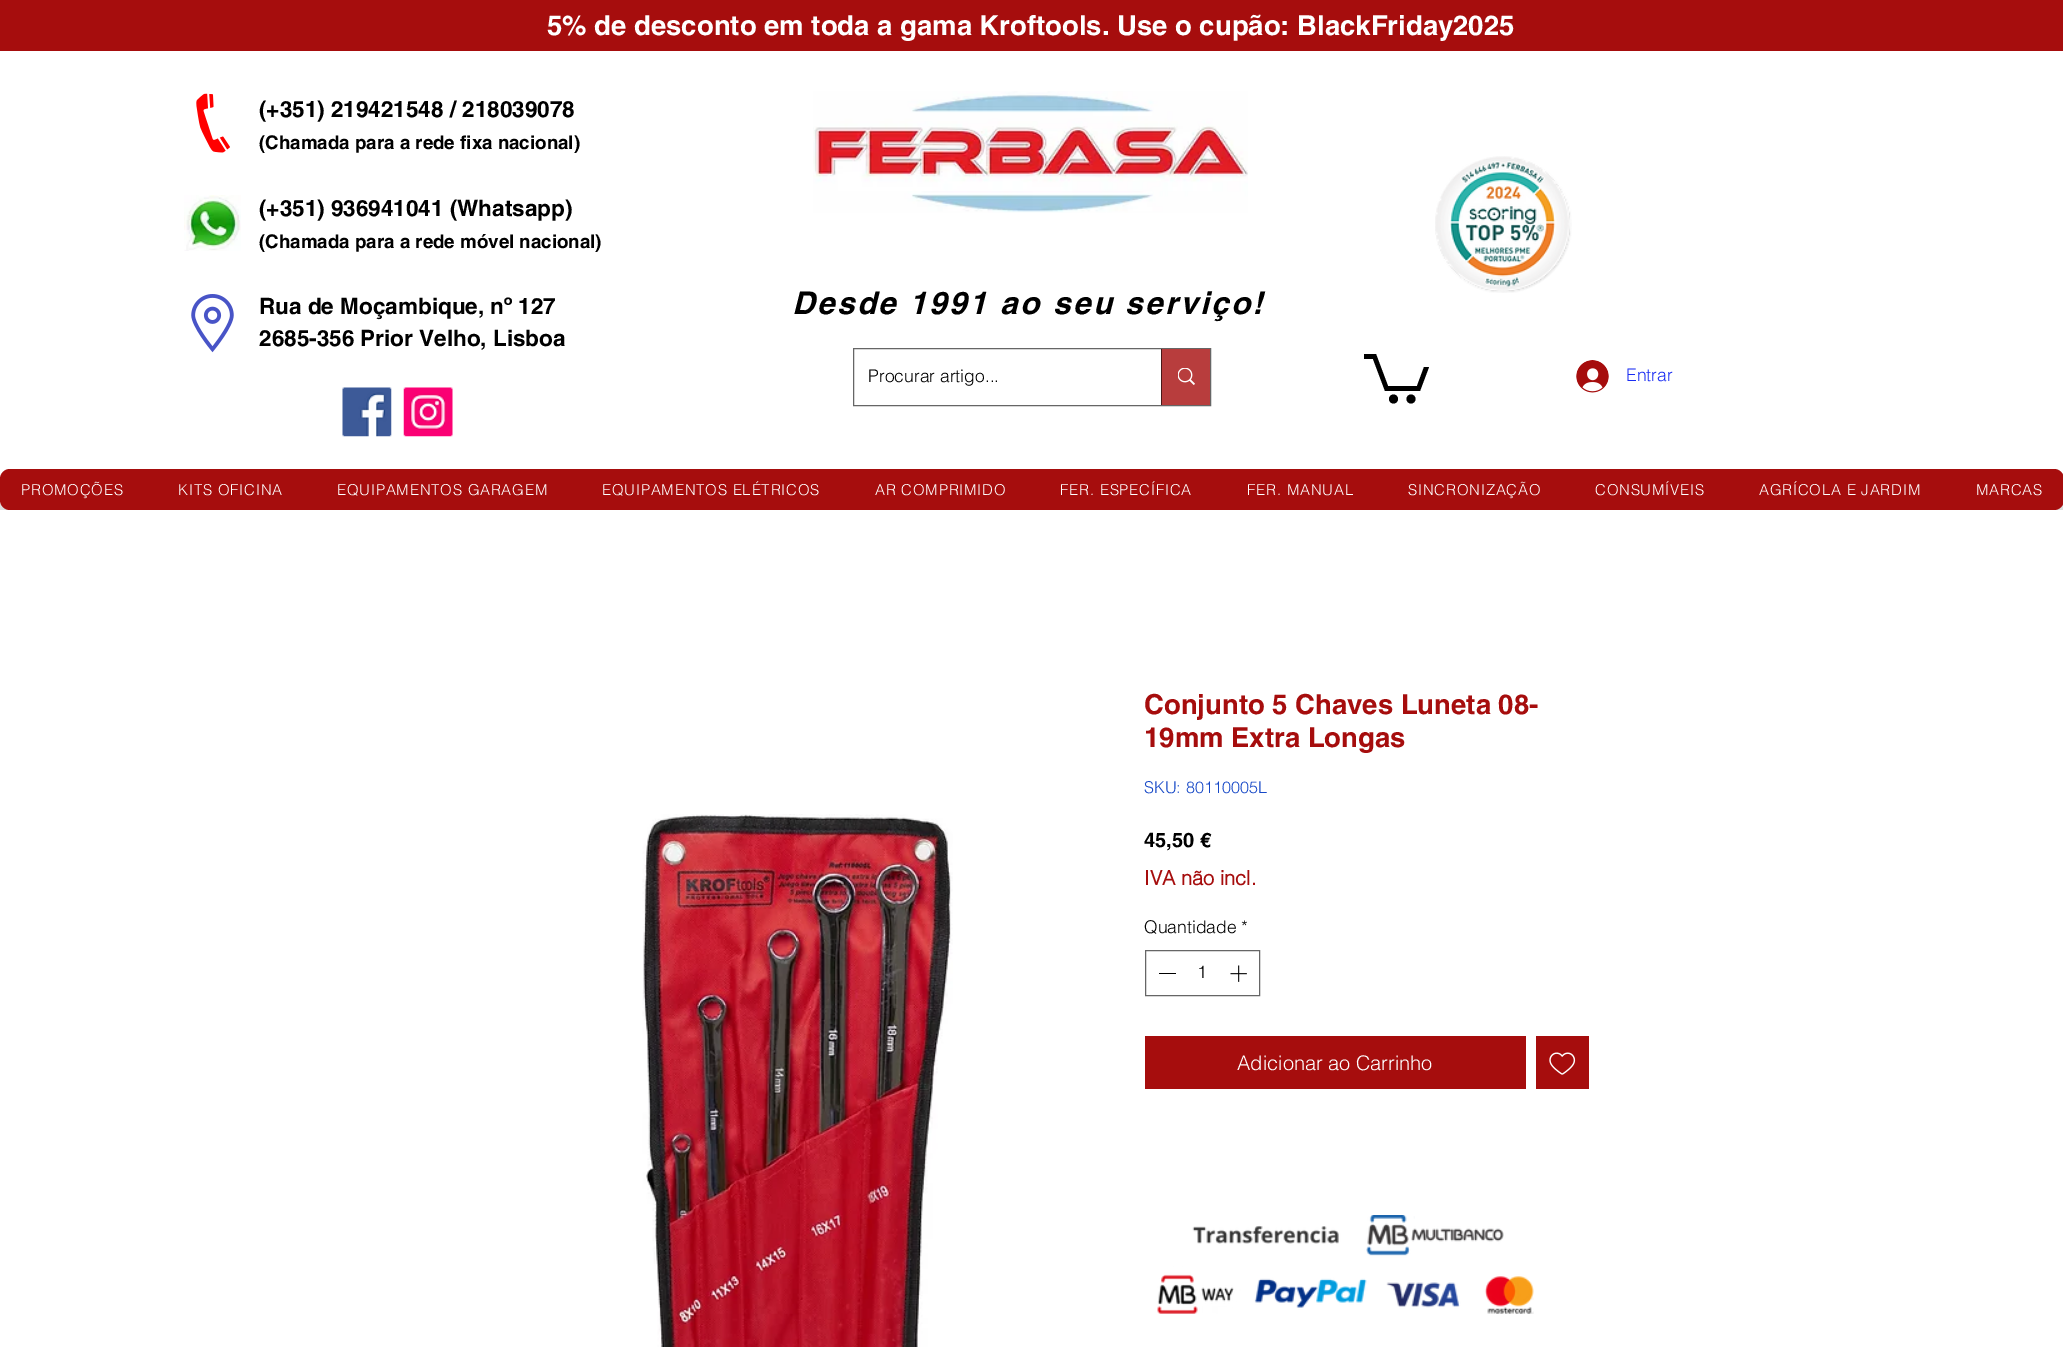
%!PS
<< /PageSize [2063 1347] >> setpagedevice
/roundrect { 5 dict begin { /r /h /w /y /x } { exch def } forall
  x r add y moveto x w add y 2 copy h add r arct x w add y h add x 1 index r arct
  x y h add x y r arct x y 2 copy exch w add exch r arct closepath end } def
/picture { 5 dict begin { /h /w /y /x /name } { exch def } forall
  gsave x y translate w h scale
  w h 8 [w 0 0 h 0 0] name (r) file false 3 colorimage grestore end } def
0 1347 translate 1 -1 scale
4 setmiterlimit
1 setgray
0 0 2063 1347 rectfill
0.651 0.051 0.051 setrgbcolor
0 0 2063 51 rectfill
/helvetica-Bold [27.5 0 0 -27.5 0 0] selectfont
1 setgray
547 35 moveto (5% de desconto em toda a gama Kroftools. Use o cupão: BlackFriday2025) show
(img1.rgb) 196 93 34 60 picture
/helvetica-Bold [22.5 0 0 -22.5 0 0] selectfont
0 setgray
259 117 moveto (\(+351\) 219421548 / 218039078) show
/helvetica-Bold [18.75 0 0 -18.75 0 0] selectfont
259 149 moveto (\(Chamada para a rede fixa nacional\)) show
(img2.rgb) 813 91 435 122 picture
(img3.rgb) 184 195 57 56 picture
/helvetica-Bold [22.5 0 0 -22.5 0 0] selectfont
259 216 moveto (\(+351\) 936941041 \(Whatsapp\)) show
/helvetica-Bold [18.75 0 0 -18.75 0 0] selectfont
259 248 moveto (\(Chamada para a rede móvel nacional\)) show
(img4.rgb) 1435 156 137 137 picture
(img5.rgb) 191 294 43 59 picture
/helvetica-Bold [22.5 0 0 -22.5 0 0] selectfont
259 314 moveto (Rua de Moçambique, nº 127) show
259 346 moveto (2685-356 Prior Velho, Lisboa) show
/helvetica-BoldItalic [31.25 0 0 -31.25 0 0] selectfont
792 314 moveto 2.5 0 (Desde 1991 ao seu serviço!) ashow
0.4 setgray
853.5 348.5 357 57 rectstroke
/helvetica-Light [17.5 0 0 -17.5 0 0] selectfont
0 setgray
868 382 moveto (Procurar artigo...) show
0.722 0.239 0.239 setrgbcolor
1162 349 48 56 rectfill
0.29 0.094 0.094 setrgbcolor
1161 349 1 56 rectfill
(img6.rgb) 1178 368 17 17 picture
0 setgray
newpath 1429 367 moveto 1420 391 lineto 1385 391 lineto 1373 359 lineto 1364 359 lineto 1364 354 lineto 1376 354 lineto 1388 386 lineto 1417 386 lineto 1424 367 lineto fill
newpath 1411 399 4.5 0 360 arc closepath fill
newpath 1393.5 399 4.5 0 360 arc closepath fill
(img7.rgb) 1576 360 33 33 picture
0.102 0.176 0.953 setrgbcolor
1626 381 moveto (Entrar) show
(img8.rgb) 342 387 50 50 picture
(img9.rgb) 403 387 50 50 picture
0.863 setgray
0 504 2063 6 rectfill
0.651 0.051 0.051 setrgbcolor
0 469 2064 41 10 roundrect fill
/helvetica-Light [15 0 0 -15 0 0] selectfont
1 setgray
21 495 moveto 0.75 0 (PROMOÇÕES) ashow
178 495 moveto 0.75 0 (KITS OFICINA) ashow
337 495 moveto 0.75 0 (EQUIPAMENTOS GARAGEM) ashow
602 495 moveto 0.75 0 (EQUIPAMENTOS ELÉTRICOS) ashow
875 495 moveto 0.75 0 (AR COMPRIMIDO) ashow
1060 495 moveto 0.75 0 (FER. ESPECÍFICA) ashow
1247 495 moveto 0.75 0 (FER. MANUAL) ashow
1408 495 moveto 0.75 0 (SINCRONIZAÇÃO) ashow
1595 495 moveto 0.75 0 (CONSUMÍVEIS) ashow
1759 495 moveto 0.75 0 (AGRÍCOLA E JARDIM) ashow
1976 495 moveto 0.75 0 (MARCAS) ashow
(img10.rgb) 642 814 311 533 picture
/helvetica-Bold [27.5 0 0 -27.5 0 0] selectfont
0.651 0.051 0.051 setrgbcolor
1144 714 moveto (Conjunto 5 Chaves Luneta 08-) show
1144 747 moveto (19mm Extra Longas) show
/helvetica-Light [16.25 0 0 -16.25 0 0] selectfont
0.086 0.282 0.78 setrgbcolor
1144 793 moveto (SKU: 80110005L) show
/helvetica-Bold [20 0 0 -20 0 0] selectfont
0 setgray
1144 847 moveto (45,50 €) show
/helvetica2-Bold [20 0 0 -20 0 0] selectfont
0.651 0.051 0.051 setrgbcolor
1144 885 moveto (IVA não incl.) show
/helvetica-Light [17.5 0 0 -17.5 0 0] selectfont
0 setgray
1144 933 moveto (Quantidade *) show
0.4 setgray
1145.5 950.5 114 45 rectstroke
0 setgray
1159 973 17 1 rectfill
1197 978 moveto (1) show
(img11.rgb) 1230 965 17 17 picture
0.651 0.051 0.051 setrgbcolor
1145 1036 381 53 rectfill
/helvetica-Light [20 0 0 -20 0 0] selectfont
1 setgray
1237 1070 moveto (Adicionar ao Carrinho) show
0.651 0.051 0.051 setrgbcolor
1536 1036 53 53 rectfill
(img12.rgb) 1549 1052 27 23 picture
(img13.rgb) 1157 1215 377 99 picture
showpage
